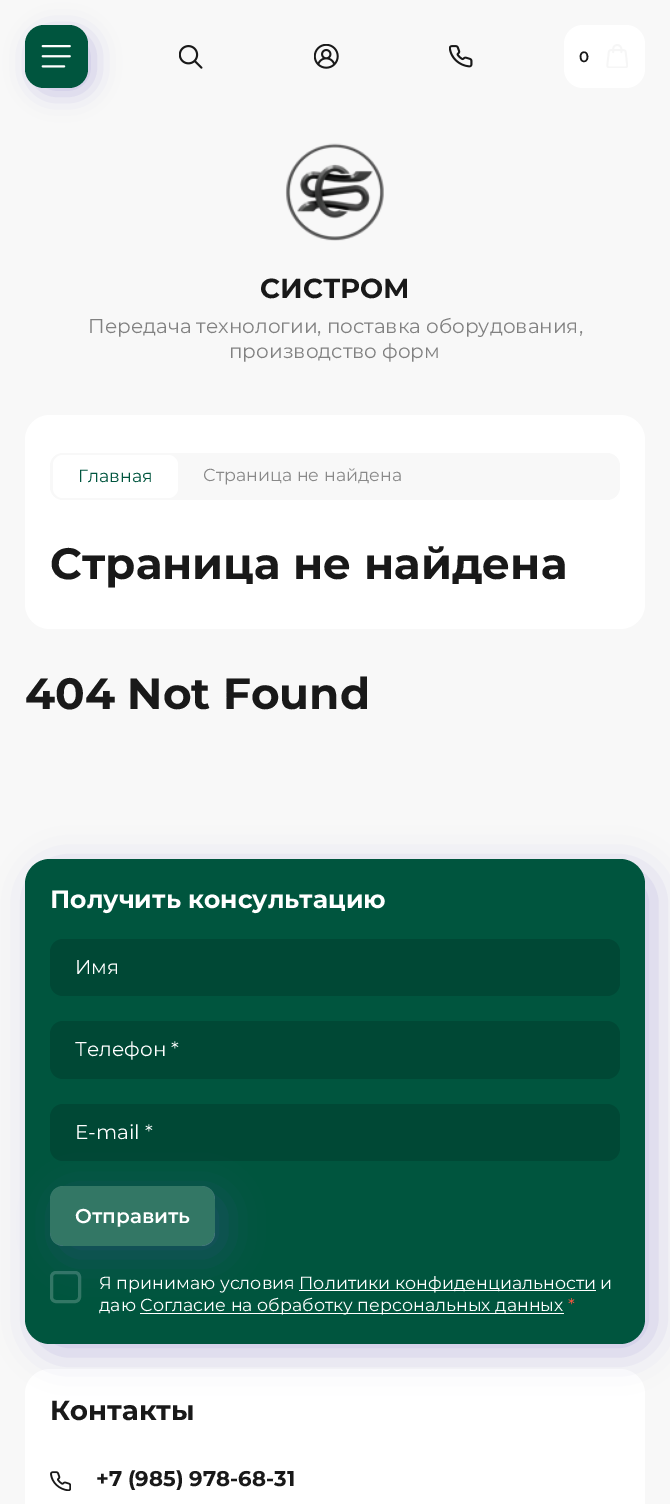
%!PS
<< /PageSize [670 1504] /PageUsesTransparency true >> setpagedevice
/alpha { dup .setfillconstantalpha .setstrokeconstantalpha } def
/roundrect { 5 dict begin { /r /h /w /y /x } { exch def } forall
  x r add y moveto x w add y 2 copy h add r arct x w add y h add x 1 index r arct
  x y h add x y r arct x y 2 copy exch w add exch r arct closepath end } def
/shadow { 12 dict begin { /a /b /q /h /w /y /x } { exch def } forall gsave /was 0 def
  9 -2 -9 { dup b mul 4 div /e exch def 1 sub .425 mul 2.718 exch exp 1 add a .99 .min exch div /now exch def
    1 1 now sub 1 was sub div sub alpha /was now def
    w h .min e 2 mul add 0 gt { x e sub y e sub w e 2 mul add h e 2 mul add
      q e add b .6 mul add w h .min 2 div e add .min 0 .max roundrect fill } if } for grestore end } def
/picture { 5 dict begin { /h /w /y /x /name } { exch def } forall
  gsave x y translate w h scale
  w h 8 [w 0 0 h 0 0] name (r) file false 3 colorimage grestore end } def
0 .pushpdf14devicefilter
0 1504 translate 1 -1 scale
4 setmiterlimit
0.973 setgray
0 0 670 1504 rectfill
0.322 0.286 0.718 setrgbcolor
31 31 63 63 19 12.5 0.3 shadow
0 0.333 0.243 setrgbcolor
25 25 63 63 19 roundrect fill
(img1.rgb) 41 45 30 23 picture
(img2.rgb) 179 45 24 24 picture
(img3.rgb) 314 44 25 25 picture
(img4.rgb) 449 45 24 23 picture
1 setgray
564 25 81 63 19 roundrect fill
/Montserrat-SemiBold [15 0 0 -15 0 0] selectfont
0.098 setgray
579 62 moveto (0) show
(img5.rgb) 606 44 22 24 picture
(img6.rgb) 285 143 99 98 picture
/Montserrat-Bold [27.5 0 0 -27.5 0 0] selectfont
260 298 moveto (СИСТРОМ) show
/Montserrat-Regular [20 0 0 -20 0 0] selectfont
0.506 setgray
88 333 moveto (Передача технологии, поставка оборудования,) show
229 358 moveto (производство форм) show
1 setgray
25 415 620 214 25 roundrect fill
0.973 setgray
50 453 570 47 13 roundrect fill
1 setgray
53 455 125 43 10 roundrect fill
/Montserrat-Regular [17.5 0 0 -17.5 0 0] selectfont
0 0.333 0.243 setrgbcolor
78 482 moveto (Главная) show
0.537 setgray
203 481 moveto (Страница не найдена) show
/Montserrat-Bold [43.75 0 0 -43.75 0 0] selectfont
0.098 setgray
50 579 moveto (Страница не найдена) show
25 709 moveto (404 Not Found) show
1 setgray
25 1369 620 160 25 roundrect fill
0.322 0.286 0.718 setrgbcolor
34 868 620 485 25 19 0.3 shadow
0 0.333 0.243 setrgbcolor
25 859 620 485 25 roundrect fill
/Montserrat-Bold [25 0 0 -25 0 0] selectfont
1 setgray
50 908 moveto (Получить консультацию) show
0 0.282 0.208 setrgbcolor
50 939 570 57 13 roundrect fill
/Montserrat-Regular [20 0 0 -20 0 0] selectfont
1 setgray
75 974 moveto (Имя) show
0 0.282 0.208 setrgbcolor
50 1021 570 58 13 roundrect fill
1 setgray
75 1056 moveto (Телефон *) show
0 0.282 0.208 setrgbcolor
50 1104 570 57 13 roundrect fill
1 setgray
75 1139 moveto (E-mail *) show
0.2 0.467 0.396 setrgbcolor
3 setlinewidth
51.5 1272.5 28 29 4.5 roundrect stroke
gsave
newpath 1 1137 moveto 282 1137 lineto 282 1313 lineto 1 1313 lineto closepath 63 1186 moveto 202 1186 lineto 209 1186 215 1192 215 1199 curveto 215 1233 lineto 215 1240 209 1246 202 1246 curveto 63 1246 lineto 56 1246 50 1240 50 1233 curveto 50 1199 lineto 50 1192 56 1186 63 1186 curveto closepath eoclip newpath
0.322 0.286 0.718 setrgbcolor
59 1195 165 60 13 19 0.3 shadow
grestore
0.2 alpha
1 setgray
50 1186 165 60 13 roundrect fill
/Montserrat-SemiBold [20 0 0 -20 0 0] selectfont
1 alpha
75 1223 moveto (Отправить) show
/Montserrat-Regular [17.5 0 0 -17.5 0 0] selectfont
99 1289 moveto (Я принимаю условия) show
299 1290 297 1 rectfill
299 1289 moveto (Политики конфиденциальности и) show
99 1311 moveto (даю) show
140 1313 424 1 rectfill
140 1311 moveto (Согласие на обработку персональных данных) show
1 0.337 0.251 setrgbcolor
568 1311 moveto (*) show
/Montserrat-Bold [27.5 0 0 -27.5 0 0] selectfont
0.098 setgray
50 1420 moveto (Контакты) show
(img7.rgb) 50 1471 21 20 picture
/Montserrat-Bold [21.25 0 0 -21.25 0 0] selectfont
96 1486 moveto (+7 \(985\) 978-68-31) show
.poppdf14devicefilter showpage
